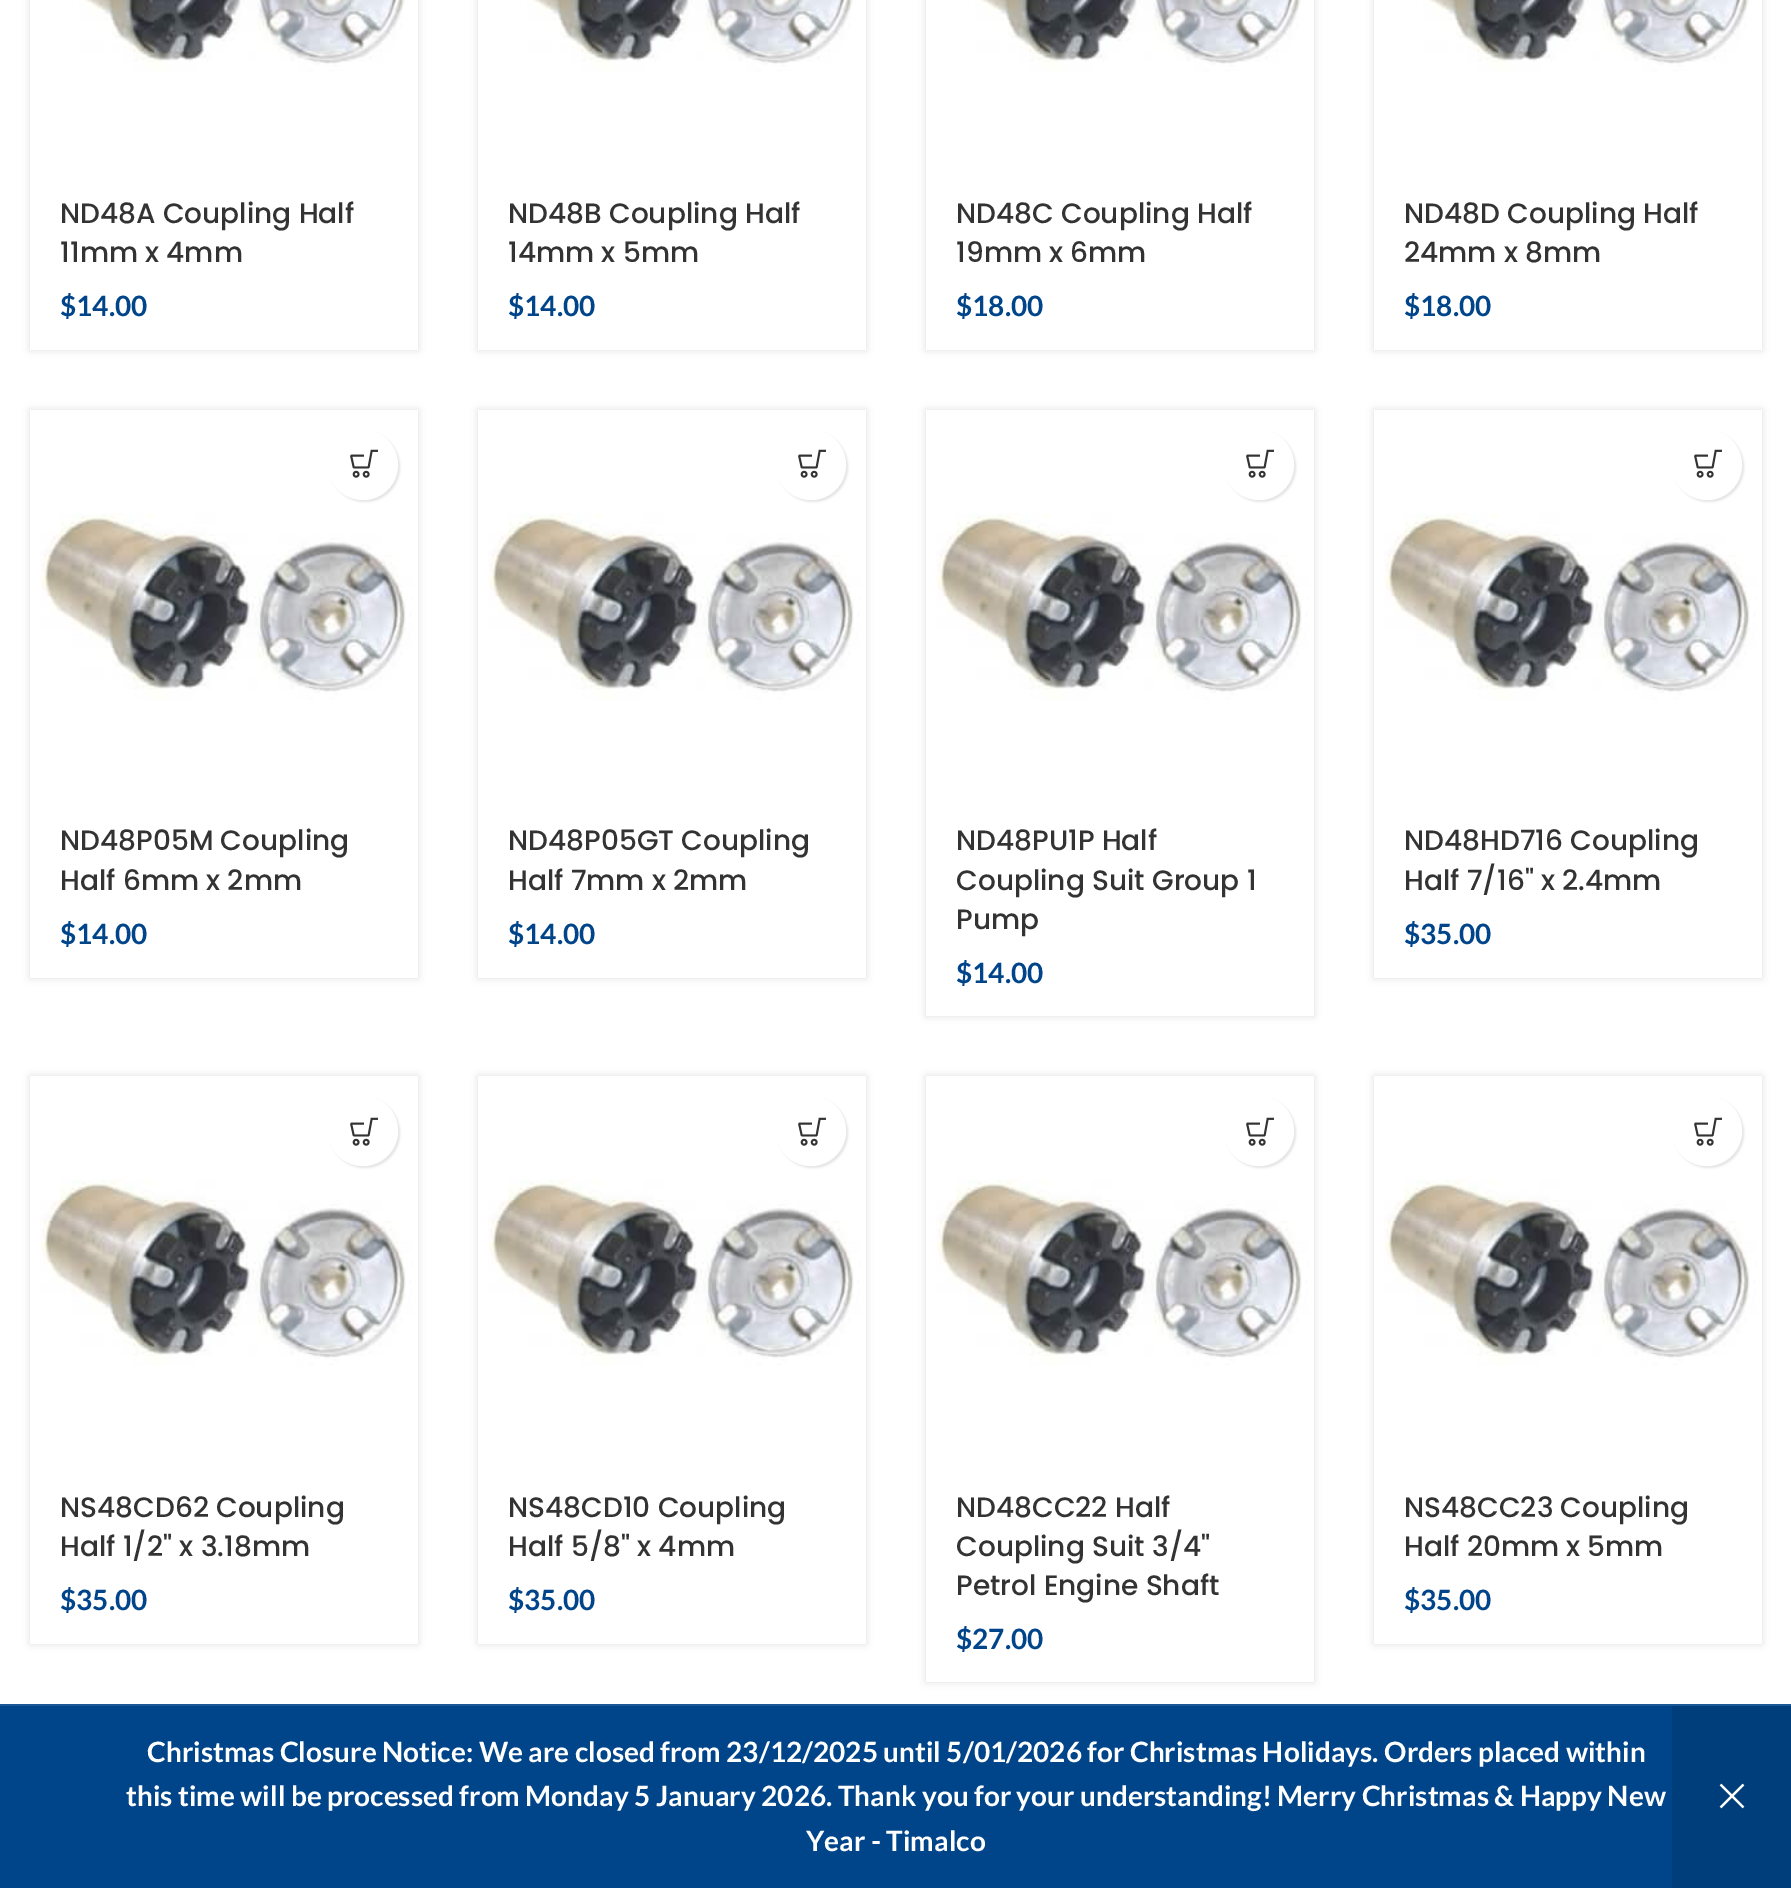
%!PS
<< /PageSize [1791 1888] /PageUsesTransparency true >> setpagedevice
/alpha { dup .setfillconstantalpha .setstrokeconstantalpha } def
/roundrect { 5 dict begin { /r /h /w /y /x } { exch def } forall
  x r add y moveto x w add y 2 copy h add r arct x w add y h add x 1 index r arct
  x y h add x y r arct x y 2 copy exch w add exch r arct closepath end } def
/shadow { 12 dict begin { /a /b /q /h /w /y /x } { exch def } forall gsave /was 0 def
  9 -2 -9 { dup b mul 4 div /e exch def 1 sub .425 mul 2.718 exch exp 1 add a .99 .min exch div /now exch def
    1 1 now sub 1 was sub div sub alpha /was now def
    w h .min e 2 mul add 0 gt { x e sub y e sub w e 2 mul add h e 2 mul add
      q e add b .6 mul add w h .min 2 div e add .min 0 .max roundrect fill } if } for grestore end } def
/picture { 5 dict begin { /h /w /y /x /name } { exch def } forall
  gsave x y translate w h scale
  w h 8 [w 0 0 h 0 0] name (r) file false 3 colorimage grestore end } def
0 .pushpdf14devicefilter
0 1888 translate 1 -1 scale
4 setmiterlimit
1 setgray
0 0 1791 1888 rectfill
gsave
newpath 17 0 moveto 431 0 lineto 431 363 lineto 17 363 lineto closepath 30 -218 moveto 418 -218 lineto 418 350 lineto 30 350 lineto closepath eoclip newpath
0 setgray
30 -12 388 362 0 4 0.12 shadow
grestore
(img1.rgb) 79 0 326 72 picture
/Poppins-Medium [28 0 0 -28 0 0] selectfont
0.2 setgray
60 223 moveto (ND48A Coupling Half) show
60 262 moveto (11mm x 4mm) show
/Lato-Bold [28 0 0 -28 0 0] selectfont
0 0.267 0.537 setrgbcolor
60 316 moveto ($14.00) show
gsave
newpath 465 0 moveto 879 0 lineto 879 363 lineto 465 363 lineto closepath 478 -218 moveto 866 -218 lineto 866 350 lineto 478 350 lineto closepath eoclip newpath
0 setgray
478 -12 388 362 0 4 0.12 shadow
grestore
(img1.rgb) 527 0 326 72 picture
/Poppins-Medium [28 0 0 -28 0 0] selectfont
0.2 setgray
508 223 moveto (ND48B Coupling Half) show
508 262 moveto (14mm x 5mm) show
/Lato-Bold [28 0 0 -28 0 0] selectfont
0 0.267 0.537 setrgbcolor
508 316 moveto ($14.00) show
gsave
newpath 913 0 moveto 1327 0 lineto 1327 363 lineto 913 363 lineto closepath 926 -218 moveto 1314 -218 lineto 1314 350 lineto 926 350 lineto closepath eoclip newpath
0 setgray
926 -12 388 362 0 4 0.12 shadow
grestore
(img1.rgb) 975 0 326 72 picture
/Poppins-Medium [28 0 0 -28 0 0] selectfont
0.2 setgray
956 223 moveto (ND48C Coupling Half) show
956 262 moveto (19mm x 6mm) show
/Lato-Bold [28 0 0 -28 0 0] selectfont
0 0.267 0.537 setrgbcolor
956 316 moveto ($18.00) show
gsave
newpath 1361 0 moveto 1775 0 lineto 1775 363 lineto 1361 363 lineto closepath 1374 -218 moveto 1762 -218 lineto 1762 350 lineto 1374 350 lineto closepath eoclip newpath
0 setgray
1374 -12 388 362 0 4 0.12 shadow
grestore
(img1.rgb) 1423 0 326 72 picture
/Poppins-Medium [28 0 0 -28 0 0] selectfont
0.2 setgray
1404 223 moveto (ND48D Coupling Half) show
1404 262 moveto (24mm x 8mm) show
/Lato-Bold [28 0 0 -28 0 0] selectfont
0 0.267 0.537 setrgbcolor
1404 316 moveto ($18.00) show
gsave
newpath 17 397 moveto 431 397 lineto 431 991 lineto 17 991 lineto closepath 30 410 moveto 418 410 lineto 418 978 lineto 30 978 lineto closepath eoclip newpath
0 setgray
30 410 388 568 0 4 0.12 shadow
grestore
0 setgray
330 432 70 70 35 1 0.1 shadow
1 setgray
newpath 363 465 35 0 360 arc closepath fill
(img2.rgb) 350 449 28 29 picture
(img3.rgb) 39 513 374 187 picture
/Poppins-Medium [28 0 0 -28 0 0] selectfont
0.2 setgray
60 850 moveto (ND48P05M Coupling) show
60 890 moveto (Half 6mm x 2mm) show
/Lato-Bold [28 0 0 -28 0 0] selectfont
0 0.267 0.537 setrgbcolor
60 944 moveto ($14.00) show
gsave
newpath 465 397 moveto 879 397 lineto 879 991 lineto 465 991 lineto closepath 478 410 moveto 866 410 lineto 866 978 lineto 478 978 lineto closepath eoclip newpath
0 setgray
478 410 388 568 0 4 0.12 shadow
grestore
0 setgray
778 432 70 70 35 1 0.1 shadow
1 setgray
newpath 811 465 35 0 360 arc closepath fill
(img2.rgb) 798 449 28 29 picture
(img3.rgb) 487 513 374 187 picture
/Poppins-Medium [28 0 0 -28 0 0] selectfont
0.2 setgray
508 850 moveto (ND48P05GT Coupling) show
508 890 moveto (Half 7mm x 2mm) show
/Lato-Bold [28 0 0 -28 0 0] selectfont
0 0.267 0.537 setrgbcolor
508 944 moveto ($14.00) show
gsave
newpath 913 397 moveto 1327 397 lineto 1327 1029 lineto 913 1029 lineto closepath 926 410 moveto 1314 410 lineto 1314 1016 lineto 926 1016 lineto closepath eoclip newpath
0 setgray
926 410 388 606 0 4 0.12 shadow
grestore
0 setgray
1226 432 70 70 35 1 0.1 shadow
1 setgray
newpath 1259 465 35 0 360 arc closepath fill
(img2.rgb) 1246 449 28 29 picture
(img3.rgb) 935 513 374 187 picture
/Poppins-Medium [28 0 0 -28 0 0] selectfont
0.2 setgray
956 850 moveto (ND48PU1P Half) show
956 890 moveto (Coupling Suit Group 1) show
956 929 moveto (Pump) show
/Lato-Bold [28 0 0 -28 0 0] selectfont
0 0.267 0.537 setrgbcolor
956 983 moveto ($14.00) show
gsave
newpath 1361 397 moveto 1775 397 lineto 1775 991 lineto 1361 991 lineto closepath 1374 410 moveto 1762 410 lineto 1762 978 lineto 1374 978 lineto closepath eoclip newpath
0 setgray
1374 410 388 568 0 4 0.12 shadow
grestore
0 setgray
1674 432 70 70 35 1 0.1 shadow
1 setgray
newpath 1707 465 35 0 360 arc closepath fill
(img2.rgb) 1694 449 28 29 picture
(img3.rgb) 1383 513 374 187 picture
/Poppins-Medium [28 0 0 -28 0 0] selectfont
0.2 setgray
1404 850 moveto (ND48HD716 Coupling) show
1404 890 moveto (Half 7/16" x 2.4mm) show
/Lato-Bold [28 0 0 -28 0 0] selectfont
0 0.267 0.537 setrgbcolor
1404 944 moveto ($35.00) show
gsave
newpath 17 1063 moveto 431 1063 lineto 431 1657 lineto 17 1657 lineto closepath 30 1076 moveto 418 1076 lineto 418 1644 lineto 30 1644 lineto closepath eoclip newpath
0 setgray
30 1076 388 568 0 4 0.12 shadow
grestore
0 setgray
330 1098 70 70 35 1 0.1 shadow
1 setgray
newpath 363 1131 35 0 360 arc closepath fill
(img2.rgb) 350 1117 28 29 picture
(img4.rgb) 39 1179 374 187 picture
/Poppins-Medium [28 0 0 -28 0 0] selectfont
0.2 setgray
60 1517 moveto (NS48CD62 Coupling) show
60 1556 moveto (Half 1/2" x 3.18mm) show
/Lato-Bold [28 0 0 -28 0 0] selectfont
0 0.267 0.537 setrgbcolor
60 1610 moveto ($35.00) show
gsave
newpath 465 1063 moveto 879 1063 lineto 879 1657 lineto 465 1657 lineto closepath 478 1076 moveto 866 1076 lineto 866 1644 lineto 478 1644 lineto closepath eoclip newpath
0 setgray
478 1076 388 568 0 4 0.12 shadow
grestore
0 setgray
778 1098 70 70 35 1 0.1 shadow
1 setgray
newpath 811 1131 35 0 360 arc closepath fill
(img2.rgb) 798 1117 28 29 picture
(img4.rgb) 487 1179 374 187 picture
/Poppins-Medium [28 0 0 -28 0 0] selectfont
0.2 setgray
508 1517 moveto (NS48CD10 Coupling) show
508 1556 moveto (Half 5/8" x 4mm) show
/Lato-Bold [28 0 0 -28 0 0] selectfont
0 0.267 0.537 setrgbcolor
508 1610 moveto ($35.00) show
gsave
newpath 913 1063 moveto 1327 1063 lineto 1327 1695 lineto 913 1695 lineto closepath 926 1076 moveto 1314 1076 lineto 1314 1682 lineto 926 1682 lineto closepath eoclip newpath
0 setgray
926 1076 388 606 0 4 0.12 shadow
grestore
0 setgray
1226 1098 70 70 35 1 0.1 shadow
1 setgray
newpath 1259 1131 35 0 360 arc closepath fill
(img2.rgb) 1246 1117 28 29 picture
(img4.rgb) 935 1179 374 187 picture
/Poppins-Medium [28 0 0 -28 0 0] selectfont
0.2 setgray
956 1517 moveto (ND48CC22 Half) show
956 1556 moveto (Coupling Suit 3/4") show
956 1595 moveto (Petrol Engine Shaft) show
/Lato-Bold [28 0 0 -28 0 0] selectfont
0 0.267 0.537 setrgbcolor
956 1649 moveto ($27.00) show
gsave
newpath 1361 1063 moveto 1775 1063 lineto 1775 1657 lineto 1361 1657 lineto closepath 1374 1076 moveto 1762 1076 lineto 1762 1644 lineto 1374 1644 lineto closepath eoclip newpath
0 setgray
1374 1076 388 568 0 4 0.12 shadow
grestore
0 setgray
1674 1098 70 70 35 1 0.1 shadow
1 setgray
newpath 1707 1131 35 0 360 arc closepath fill
(img2.rgb) 1694 1117 28 29 picture
(img4.rgb) 1383 1179 374 187 picture
/Poppins-Medium [28 0 0 -28 0 0] selectfont
0.2 setgray
1404 1517 moveto (NS48CC23 Coupling) show
1404 1556 moveto (Half 20mm x 5mm) show
/Lato-Bold [28 0 0 -28 0 0] selectfont
0 0.267 0.537 setrgbcolor
1404 1610 moveto ($35.00) show
0 1706 1672 182 rectfill
0.102 0.341 0.584 setrgbcolor
0 1704 1791 2 rectfill
1 setgray
147 1762 moveto (Christmas Closure Notice: We are closed from 23/12/2025 until 5/01/2026 for Christmas Holidays. Orders placed within) show
0 0.239 0.482 setrgbcolor
1672 1706 119 182 rectfill
(img5.rgb) 1719 1783 26 26 picture
1 setgray
126 1806 moveto (this time will be processed from Monday 5 January 2026. Thank you for your understanding! Merry Christmas & Happy New) show
806 1851 moveto (Year - Timalco) show
.poppdf14devicefilter showpage
